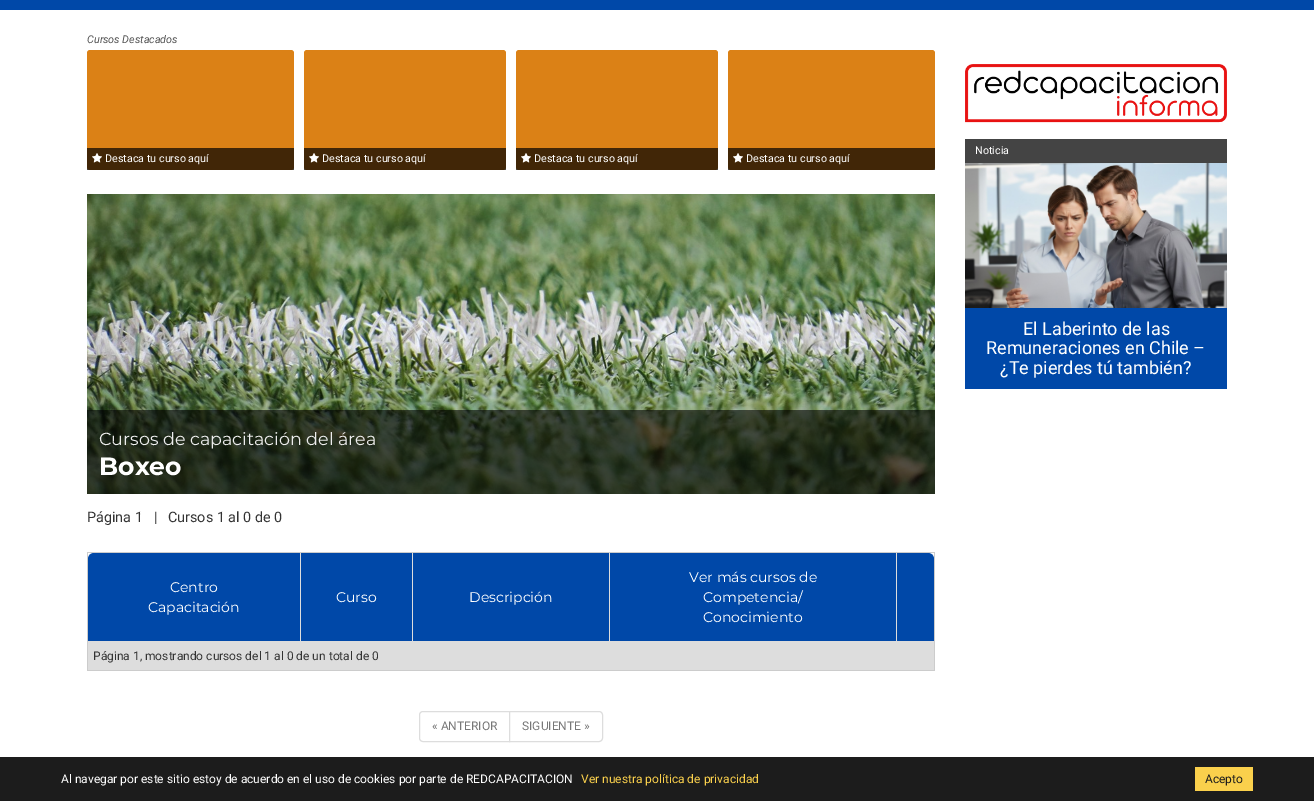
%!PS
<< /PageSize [1314 801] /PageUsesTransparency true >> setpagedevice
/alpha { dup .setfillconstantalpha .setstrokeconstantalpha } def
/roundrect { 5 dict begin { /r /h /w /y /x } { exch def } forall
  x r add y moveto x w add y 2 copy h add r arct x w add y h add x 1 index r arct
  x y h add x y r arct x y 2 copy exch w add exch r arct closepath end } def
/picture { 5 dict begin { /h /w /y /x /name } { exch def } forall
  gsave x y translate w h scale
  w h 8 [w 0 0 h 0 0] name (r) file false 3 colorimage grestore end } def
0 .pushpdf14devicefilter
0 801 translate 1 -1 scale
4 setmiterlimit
1 setgray
0 0 1314 801 rectfill
0 0.282 0.659 setrgbcolor
0 0 1314 10 rectfill
/Roboto-Italic [10.75 0 0 -10.75 0 0] selectfont
0.333 setgray
87 43 moveto (Cursos Destacados) show
0.859 0.506 0.086 setrgbcolor
87 50 207 120 3 roundrect fill
0.7 alpha
0 setgray
87 148 207 22 rectfill
1 alpha
(img1.rgb) 92 153 10 10 picture
/Roboto-Regular [10.75 0 0 -10.75 0 0] selectfont
1 setgray
105 162 moveto (Destaca tu curso aquí) show
0.859 0.506 0.086 setrgbcolor
304 50 202 120 3 roundrect fill
0.7 alpha
0 setgray
304 148 202 22 rectfill
1 alpha
(img1.rgb) 309 153 10 10 picture
1 setgray
322 162 moveto (Destaca tu curso aquí) show
0.859 0.506 0.086 setrgbcolor
516 50 202 120 3 roundrect fill
0.7 alpha
0 setgray
516 148 202 22 rectfill
1 alpha
(img1.rgb) 521 153 10 10 picture
1 setgray
534 162 moveto (Destaca tu curso aquí) show
0.859 0.506 0.086 setrgbcolor
728 50 207 120 3 roundrect fill
0.7 alpha
0 setgray
728 148 207 22 rectfill
1 alpha
(img1.rgb) 733 153 10 10 picture
1 setgray
746 162 moveto (Destaca tu curso aquí) show
(img2.rgb) 87 194 848 300 picture
0.6 alpha
0 setgray
87 410 848 84 rectfill
/Montserrat-Regular [17.5 0 0 -17.5 0 0] selectfont
1 alpha
0.933 setgray
99 445 moveto (Cursos de capacitación del área) show
/Montserrat-Bold [25 0 0 -25 0 0] selectfont
1 setgray
99 475 moveto (Boxeo) show
/Roboto-Regular [14.4 0 0 -14.4 0 0] selectfont
0.2 setgray
87 522 moveto (Página 1   |   Cursos 1 al 0 de 0) show
0.8 setgray
87 552 848 1 rectfill
934 552 1 119 rectfill
87 670 848 1 rectfill
87 552 1 119 rectfill
0 0.282 0.659 setrgbcolor
newpath 897 553 moveto 928 553 lineto 931.5 553 934 555.5 934 559 curveto 934 642 lineto 897 642 lineto closepath fill
newpath 94 553 moveto 301 553 lineto 301 642 lineto 88 642 lineto 88 559 lineto 88 555.5 90.5 553 94 553 curveto closepath fill
0.867 setgray
300 553 1 89 rectfill
412 553 1 89 rectfill
609 553 1 89 rectfill
896 553 1 89 rectfill
88 641 846 2 rectfill
/Montserrat-Regular [14 0 0 -14 0 0] selectfont
1 setgray
170 592 moveto (Centro) show
148 612 moveto (Capacitación) show
0 0.282 0.659 setrgbcolor
301 553 111 88 rectfill
1 setgray
336 602 moveto (Curso) show
0 0.282 0.659 setrgbcolor
413 553 196 88 rectfill
1 setgray
469 602 moveto (Descripción) show
0 0.282 0.659 setrgbcolor
610 553 286 88 rectfill
1 setgray
689 582 moveto (Ver más cursos de) show
703 602 moveto (Competencia/) show
703 622 moveto (Conocimiento) show
0.867 setgray
88 643 846 27 rectfill
/Roboto-Regular [12 0 0 -12 0 0] selectfont
0.2 setgray
93 660 moveto (Página 1, mostrando cursos del 1 al 0 de un total de 0) show
0.867 setgray
newpath 423 711.5 moveto 509.5 711.5 lineto 509.5 741.5 lineto 423 741.5 lineto 421 741.5 419.5 740 419.5 738 curveto 419.5 715 lineto 419.5 713 421 711.5 423 711.5 curveto closepath stroke
0.467 setgray
432 730 moveto (« ANTERIOR) show
1 setgray
newpath 509.5 711.5 moveto 599 711.5 lineto 601 711.5 602.5 713 602.5 715 curveto 602.5 738 lineto 602.5 740 601 741.5 599 741.5 curveto 509.5 741.5 lineto closepath gsave fill grestore
0.867 setgray
stroke
0.467 setgray
522 730 moveto (SIGUIENTE ») show
(img3.rgb) 965 64 262 59 picture
(img4.rgb) 965 163 262 145 picture
0.267 setgray
965 139 262 24 rectfill
/Roboto-Regular [10.75 0 0 -10.75 0 0] selectfont
1 setgray
975 154 moveto (Noticia) show
0 0.282 0.659 setrgbcolor
965 308 262 81 rectfill
/Roboto-Regular [18 0 0 -18 0 0] selectfont
1 setgray
1023 335 moveto (El Laberinto de las) show
986 354 moveto (Remuneraciones en Chile –) show
1000 374 moveto (¿Te pierdes tú también?) show
0.11 setgray
0 757 1314 44 rectfill
/Roboto-Regular [12 0 0 -12 0 0] selectfont
1 setgray
61 783 moveto (Al navegar por este sitio estoy de acuerdo en el uso de cookies por parte de REDCAPACITACION) show
0.98 0.816 0.298 setrgbcolor
581 783 moveto (Ver nuestra política de privacidad) show
1195 767 58 24 rectfill
0.11 setgray
1205 783 moveto (Acepto) show
.poppdf14devicefilter showpage
